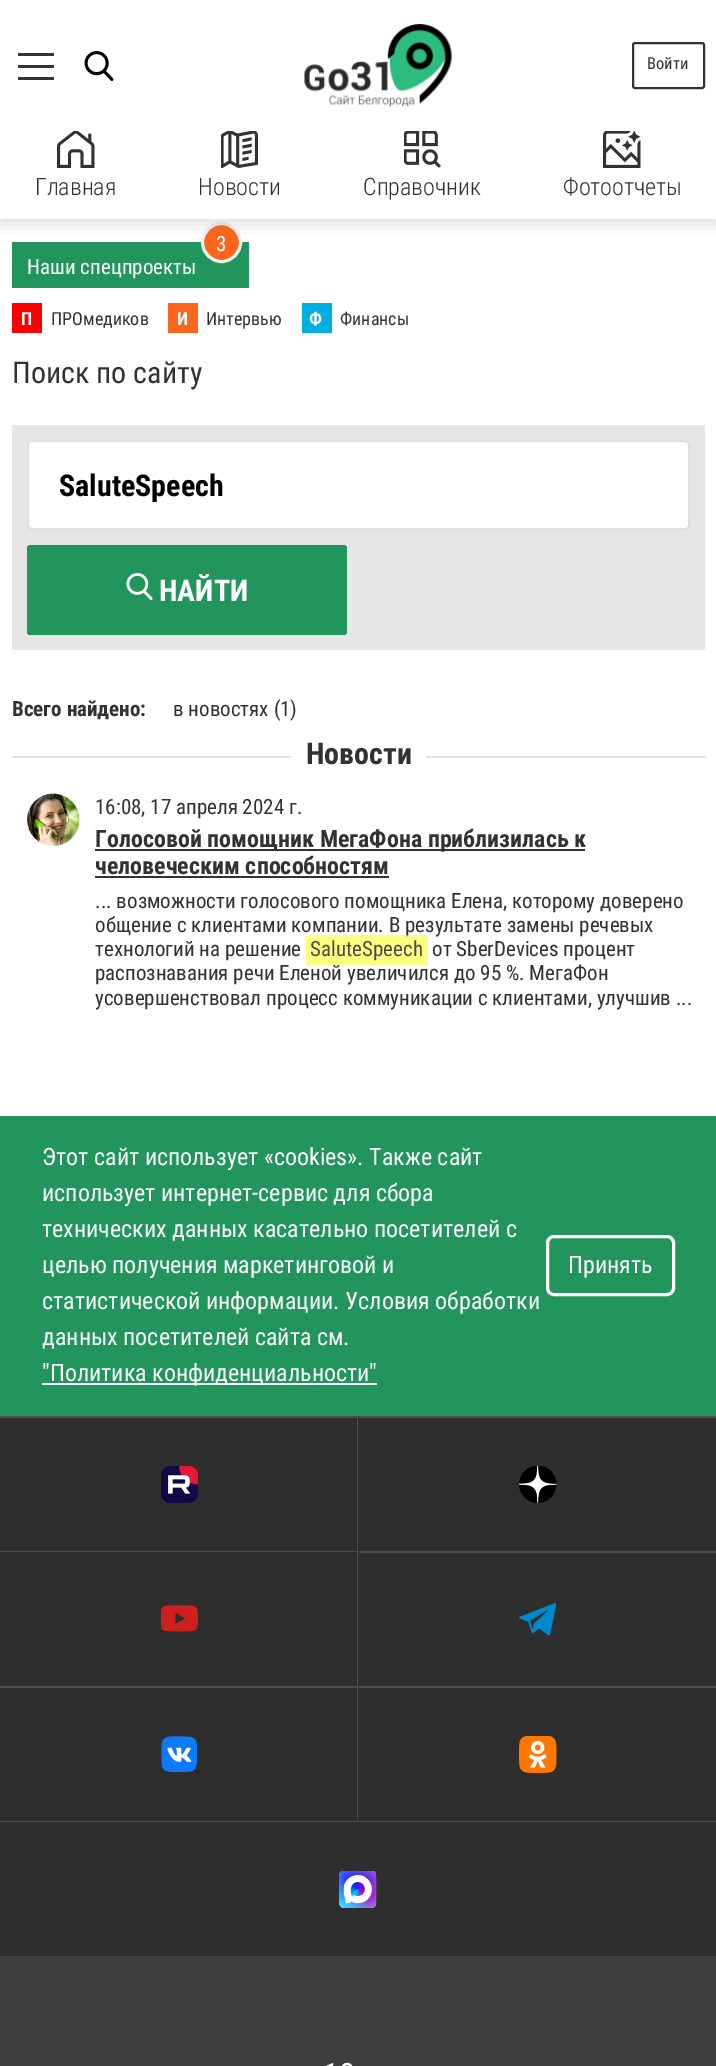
%!PS
<< /PageSize [716 2066] /PageUsesTransparency true >> setpagedevice
/alpha { dup .setfillconstantalpha .setstrokeconstantalpha } def
/roundrect { 5 dict begin { /r /h /w /y /x } { exch def } forall
  x r add y moveto x w add y 2 copy h add r arct x w add y h add x 1 index r arct
  x y h add x y r arct x y 2 copy exch w add exch r arct closepath end } def
/shadow { 12 dict begin { /a /b /q /h /w /y /x } { exch def } forall gsave /was 0 def
  9 -2 -9 { dup b mul 4 div /e exch def 1 sub .425 mul 2.718 exch exp 1 add a .99 .min exch div /now exch def
    1 1 now sub 1 was sub div sub alpha /was now def
    w h .min e 2 mul add 0 gt { x e sub y e sub w e 2 mul add h e 2 mul add
      q e add b .6 mul add w h .min 2 div e add .min 0 .max roundrect fill } if } for grestore end } def
/picture { 5 dict begin { /h /w /y /x /name } { exch def } forall
  gsave x y translate w h scale
  w h 8 [w 0 0 h 0 0] name (r) file false 3 colorimage grestore end } def
0 .pushpdf14devicefilter
0 2066 translate 1 -1 scale
4 setmiterlimit
1 setgray
0 0 716 2066 rectfill
0.133 0.584 0.365 setrgbcolor
12 242 237 46 rectfill
0.984 0.4 0.11 setrgbcolor
newpath 221.5 242.5 19 0 360 arc closepath gsave fill grestore
0.941 setgray
3 setlinewidth
stroke
gsave
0 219 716 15 rectclip
0.306 setgray
0 5 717 219 0 7.5 0.2 shadow
grestore
0.196 setgray
18 65 36 3 rectfill
18 53 36 3 rectfill
18 77 36 3 rectfill
(img1.rgb) 84 51 30 30 picture
(img2.rgb) 304 24 148 83 picture
2 setlinewidth
633 43 71 45 2 roundrect stroke
/RobotoCondensed-Regular [16.5 0 0 -16.5 0 0] selectfont
647 69 moveto (Войти) show
(img3.rgb) 57 131 38 37 picture
/RobotoCondensed-Light [24 0 0 -24 0 0] selectfont
35 195 moveto (Главная) show
(img4.rgb) 221 131 37 37 picture
198 195 moveto (Новости) show
(img5.rgb) 404 131 37 37 picture
363 195 moveto (Справочник) show
(img6.rgb) 603 131 38 37 picture
563 195 moveto (Фотоотчеты) show
/RobotoCondensed-Regular [21 0 0 -21 0 0] selectfont
1 setgray
216 251 moveto (3) show
27 274 moveto (Наши спецпроекты) show
1 0 0 setrgbcolor
12 303 30 30 rectfill
/RobotoCondensed-Bold [18 0 0 -18 0 0] selectfont
1 setgray
21 325 moveto (П) show
/RobotoCondensed-Regular [18 0 0 -18 0 0] selectfont
0.196 setgray
51 325 moveto (ПРОмедиков) show
0.984 0.4 0.11 setrgbcolor
168 303 30 30 rectfill
/RobotoCondensed-Bold [18 0 0 -18 0 0] selectfont
1 setgray
177 325 moveto (И) show
/RobotoCondensed-Regular [18 0 0 -18 0 0] selectfont
0.196 setgray
206 325 moveto (Интервью) show
0 0.686 0.882 setrgbcolor
302 303 30 30 rectfill
/RobotoCondensed-Bold [18 0 0 -18 0 0] selectfont
1 setgray
309 325 moveto (Ф) show
/RobotoCondensed-Regular [18 0 0 -18 0 0] selectfont
0.196 setgray
340 325 moveto (Финансы) show
/RobotoCondensed-Regular [30 0 0 -30 0 0] selectfont
12 383 moveto (Поиск по сайту) show
0.902 setgray
12 425 693 225 rectfill
1 setgray
27 440 663 90 5 roundrect fill
0.15 alpha
0.196 setgray
28 441 661 88 4 roundrect stroke
/RobotoCondensed-Bold [30 0 0 -30 0 0] selectfont
1 alpha
0 setgray
59 496 moveto (SaluteSpeech) show
0.133 0.584 0.365 setrgbcolor
27 545 320 90 3 roundrect fill
(img7.rgb) 126 573 27 27 picture
1 setgray
159 601 moveto (НАЙТИ) show
/RobotoCondensed-Bold [21 0 0 -21 0 0] selectfont
0.196 setgray
12 716 moveto (Всего найдено:) show
/RobotoCondensed-Regular [21 0 0 -21 0 0] selectfont
173 716 moveto (в новостях \(1\)) show
0.878 setgray
12 756 279 2 rectfill
/RobotoCondensed-Bold [30 0 0 -30 0 0] selectfont
0.196 setgray
306 764 moveto (Новости) show
0.878 setgray
426 756 279 2 rectfill
(img8.rgb) 27 793 53 53 picture
/RobotoCondensed-Regular [21 0 0 -21 0 0] selectfont
0.196 setgray
95 814 moveto (16:08, 17 апреля 2024 г.) show
95 849 490 2 rectfill
/RobotoCondensed-Bold [24 0 0 -24 0 0] selectfont
95 847 moveto (Голосовой помощник МегаФона приблизилась к) show
95 874 moveto (человеческим способностям) show
95 876 294 2 rectfill
/RobotoCondensed-Regular [21 0 0 -21 0 0] selectfont
95 908 moveto (... возможности голосового помощника Елена, которому доверено) show
95 932 moveto (общение с клиентами компании. В результате замены речевых) show
95 956 moveto (технологий на решение) show
0.5 alpha
0.988 1 0 setrgbcolor
306 935 122 30 rectfill
1 alpha
0.298 setgray
310 956 moveto (SaluteSpeech) show
0.196 setgray
432 956 moveto (от SberDevices процент) show
95 980 moveto (распознавания речи Еленой увеличился до 95 %. МегаФон) show
95 1005 moveto (усовершенствовал процесс коммуникации с клиентами, улучшив ...) show
0.133 0.584 0.365 setrgbcolor
0 1116 716 300 rectfill
/RobotoCondensed-Regular [24 0 0 -24 0 0] selectfont
1 setgray
42 1165 moveto (Этот сайт использует «cookies». Также сайт) show
42 1201 moveto (использует интернет-сервис для сбора) show
42 1237 moveto (технических данных касательно посетителей с) show
42 1273 moveto (целью получения маркетинговой и) show
42 1309 moveto (статистической информации. Условия обработки) show
42 1345 moveto (данных посетителей сайта см.) show
42 1383 335 2 rectfill
42 1381 moveto ("Политика конфиденциальности") show
3 setlinewidth
547.5 1236.5 126 58 6.5 roundrect stroke
568 1273 moveto (Принять) show
0.247 0.243 0.243 setrgbcolor
0 1956 716 110 rectfill
0.184 0.18 0.18 setrgbcolor
0 1416 716 540 rectfill
0.306 0.302 0.302 setrgbcolor
newpath 0 1416 moveto 358 1416 lineto 357 1418 lineto 0 1418 lineto closepath fill
0.15 alpha
1 setgray
newpath 358 1416 moveto 358 1551 lineto 357 1551 lineto 357 1418 lineto closepath fill
1 alpha
(img9.rgb) 161 1466 37 37 picture
0.306 0.302 0.302 setrgbcolor
359 1416 357 2 rectfill
(img10.rgb) 519 1466 38 37 picture
newpath 0 1551 moveto 358 1551 lineto 357 1552 lineto 0 1552 lineto closepath fill
0.15 alpha
1 setgray
newpath 358 1551 moveto 358 1686 lineto 357 1686 lineto 357 1552 lineto closepath fill
1 alpha
(img11.rgb) 161 1605 37 27 picture
0.306 0.302 0.302 setrgbcolor
359 1551 357 2 rectfill
(img12.rgb) 519 1602 37 34 picture
newpath 0 1686 moveto 358 1686 lineto 357 1688 lineto 0 1688 lineto closepath fill
0.15 alpha
1 setgray
newpath 358 1686 moveto 358 1821 lineto 357 1821 lineto 357 1688 lineto closepath fill
1 alpha
(img13.rgb) 161 1736 37 37 picture
0.306 0.302 0.302 setrgbcolor
359 1686 357 2 rectfill
(img14.rgb) 519 1736 38 37 picture
newpath 0 1821 moveto 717 1821 lineto 716 1822 lineto 0 1822 lineto closepath fill
(img15.rgb) 339 1871 38 37 picture
(img16.rgb) 326 2062 27 4 picture
.poppdf14devicefilter showpage
